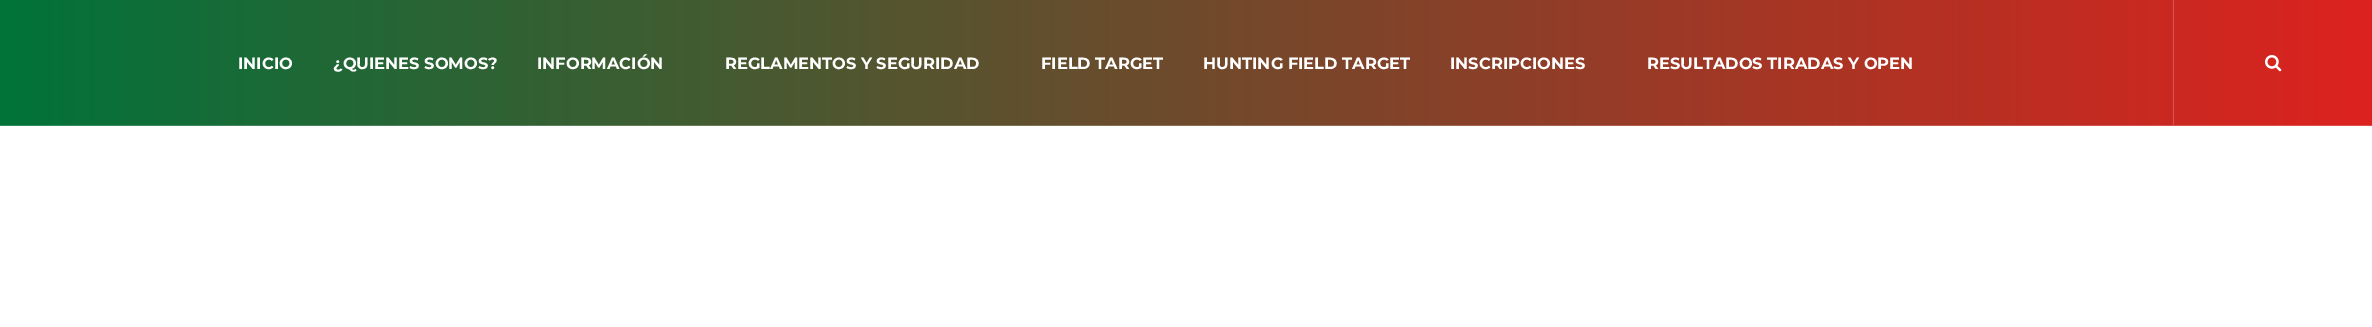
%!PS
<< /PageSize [2372 327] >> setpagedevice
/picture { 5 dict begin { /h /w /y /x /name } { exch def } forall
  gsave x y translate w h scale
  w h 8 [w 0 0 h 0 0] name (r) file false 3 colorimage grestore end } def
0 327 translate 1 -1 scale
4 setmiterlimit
1 setgray
0 0 2372 327 rectfill
gsave newpath 0 0 moveto 2372 0 lineto 2372 125 lineto 0 125 lineto closepath clip newpath
<< /ShadingType 2 /ColorSpace /DeviceRGB /Coords [0 63 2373 63] /Extend [true true] /Function << /FunctionType 2 /Domain [0 1] /C0 [0.004 0.451 0.227] /C1 [0.867 0.133 0.118] /N 1 >> >> shfill grestore
gsave newpath 0 125 moveto 2372 125 lineto 2372 126 lineto 0 126 lineto closepath clip newpath
<< /ShadingType 2 /ColorSpace /DeviceRGB /Coords [0 63 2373 63] /Extend [true true] /Function << /FunctionType 2 /Domain [0 1] /C0 [0.204 0.561 0.38] /C1 [0.894 0.306 0.294] /N 1 >> >> shfill grestore
/Montserrat-Bold [16.25 0 0 -16.25 0 0] selectfont
238 69 moveto (INICIO) show
333 69 moveto (¿QUIENES SOMOS?) show
537 69 moveto (INFORMACIÓN) show
725 69 moveto (REGLAMENTOS Y SEGURIDAD) show
1041 69 moveto (FIELD TARGET) show
1203 69 moveto (HUNTING FIELD TARGET) show
1450 69 moveto (INSCRIPCIONES) show
1647 69 moveto (RESULTADOS TIRADAS Y OPEN) show
0.835 0.329 0.302 setrgbcolor
2173 0 1 125 rectfill
(img1.rgb) 2265 55 17 17 picture
showpage
